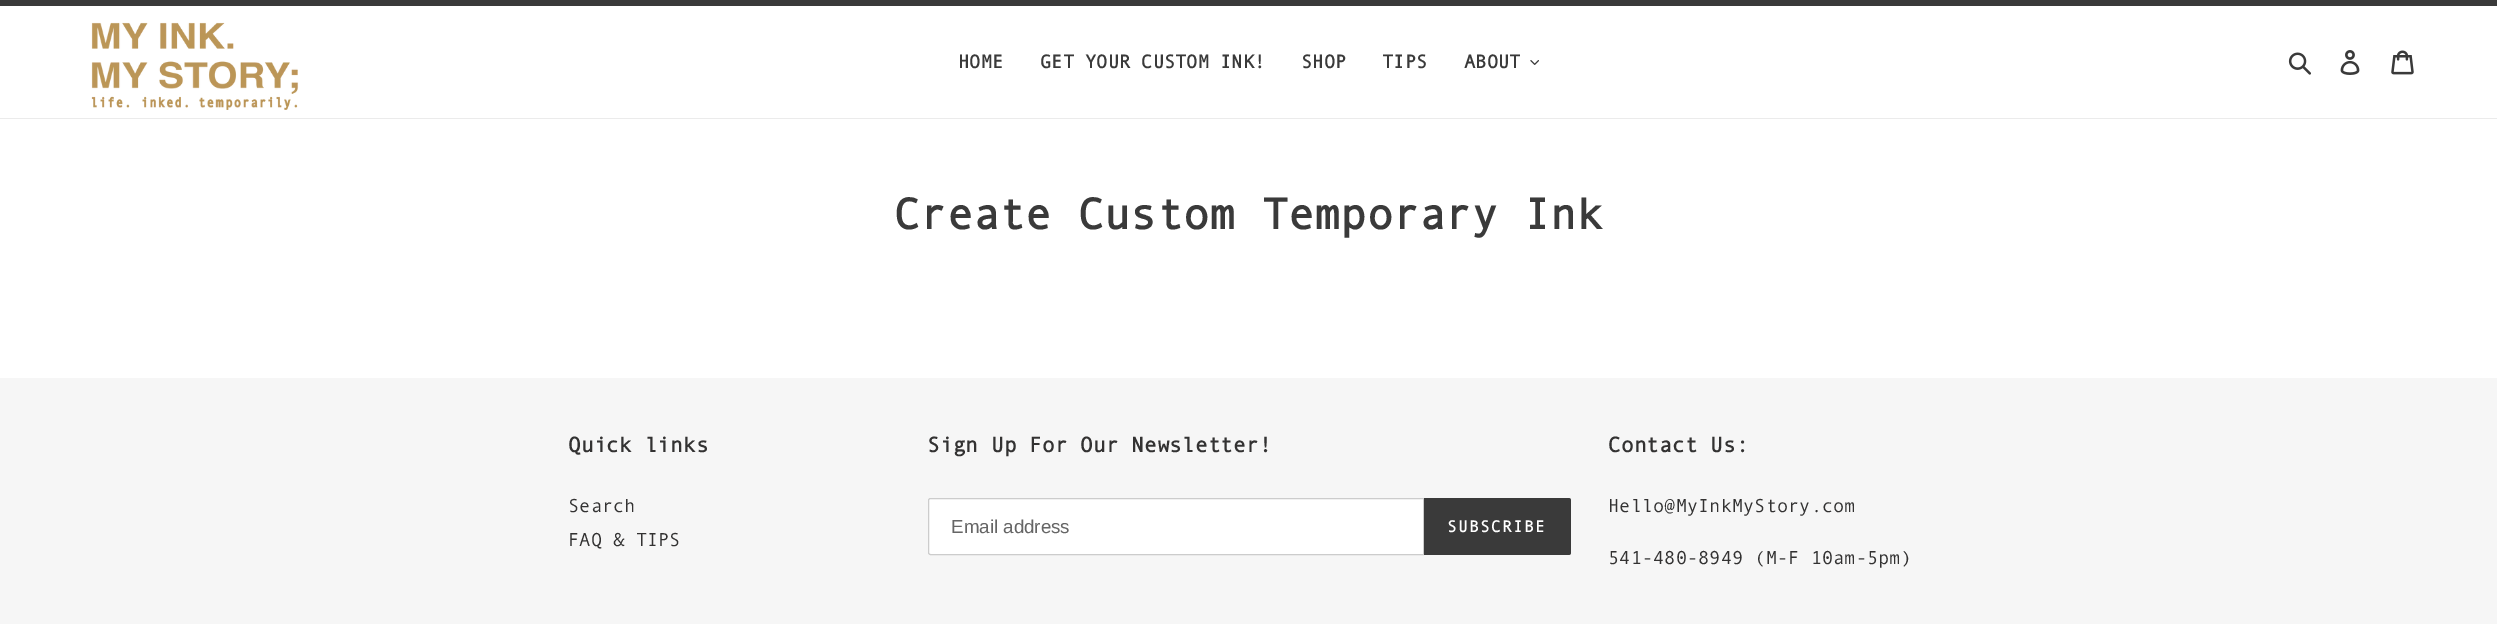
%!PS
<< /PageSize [2497 624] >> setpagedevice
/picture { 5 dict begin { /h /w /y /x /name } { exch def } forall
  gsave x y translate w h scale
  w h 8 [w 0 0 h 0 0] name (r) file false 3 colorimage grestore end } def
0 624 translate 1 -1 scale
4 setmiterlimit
1 setgray
0 0 2497 624 rectfill
0.227 setgray
0 0 2497 6 rectfill
0.922 setgray
0 118 2497 1 rectfill
(img1.rgb) 91 22 208 88 picture
/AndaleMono-Bold [18.75 0 0 -18.75 0 0] selectfont
0.227 setgray
958 68 moveto (HOME) show
1040 68 moveto (GET YOUR CUSTOM INK!) show
1301 68 moveto (SHOP) show
1382 68 moveto (TIPS) show
1464 68 moveto (ABOUT) show
(img2.rgb) 1530 60 9 5 picture
(img3.rgb) 2288 52 23 23 picture
(img4.rgb) 2340 50 20 25 picture
(img5.rgb) 2391 50 23 25 picture
/AndaleMono-Bold [43.75 0 0 -43.75 0 0] selectfont
894 229 moveto (Create Custom Temporary Ink) show
0.965 setgray
0 378 2497 246 rectfill
/AndaleMono-Bold [21.25 0 0 -21.25 0 0] selectfont
0.2 0.196 0.196 setrgbcolor
568 452 moveto (Quick links) show
/AndaleMono-Regular [18.75 0 0 -18.75 0 0] selectfont
568 512 moveto (Search) show
568 546 moveto (FAQ & TIPS) show
/AndaleMono-Bold [21.25 0 0 -21.25 0 0] selectfont
927 452 moveto (Sign Up For Our Newsletter!) show
1 setgray
newpath 930.5 498.5 moveto 1423.5 498.5 lineto 1423.5 554.5 lineto 930.5 554.5 lineto 929.5 554.5 928.5 553.5 928.5 552.5 curveto 928.5 500.5 lineto 928.5 499.5 929.5 498.5 930.5 498.5 curveto closepath gsave fill grestore
0.8 setgray
stroke
/LiberationSans-Regular [18.75 0 0 -18.75 0 0] selectfont
0.4 setgray
951 533 moveto (Email address) show
0.227 setgray
newpath 1424 498 moveto 1568.5 498 lineto 1570 498 1571 499 1571 500.5 curveto 1571 552.5 lineto 1571 554 1570 555 1568.5 555 curveto 1424 555 lineto closepath fill
/AndaleMono-Bold [16.25 0 0 -16.25 0 0] selectfont
1 setgray
1447 532 moveto 1.25 0 (SUBSCRIBE) ashow
/AndaleMono-Bold [21.25 0 0 -21.25 0 0] selectfont
0.2 0.196 0.196 setrgbcolor
1608 452 moveto (Contact Us:) show
/AndaleMono-Regular [18.75 0 0 -18.75 0 0] selectfont
1608 512 moveto (Hello@MyInkMyStory.com) show
1608 564 moveto (541-480-8949 \(M-F 10am-5pm\)) show
showpage
